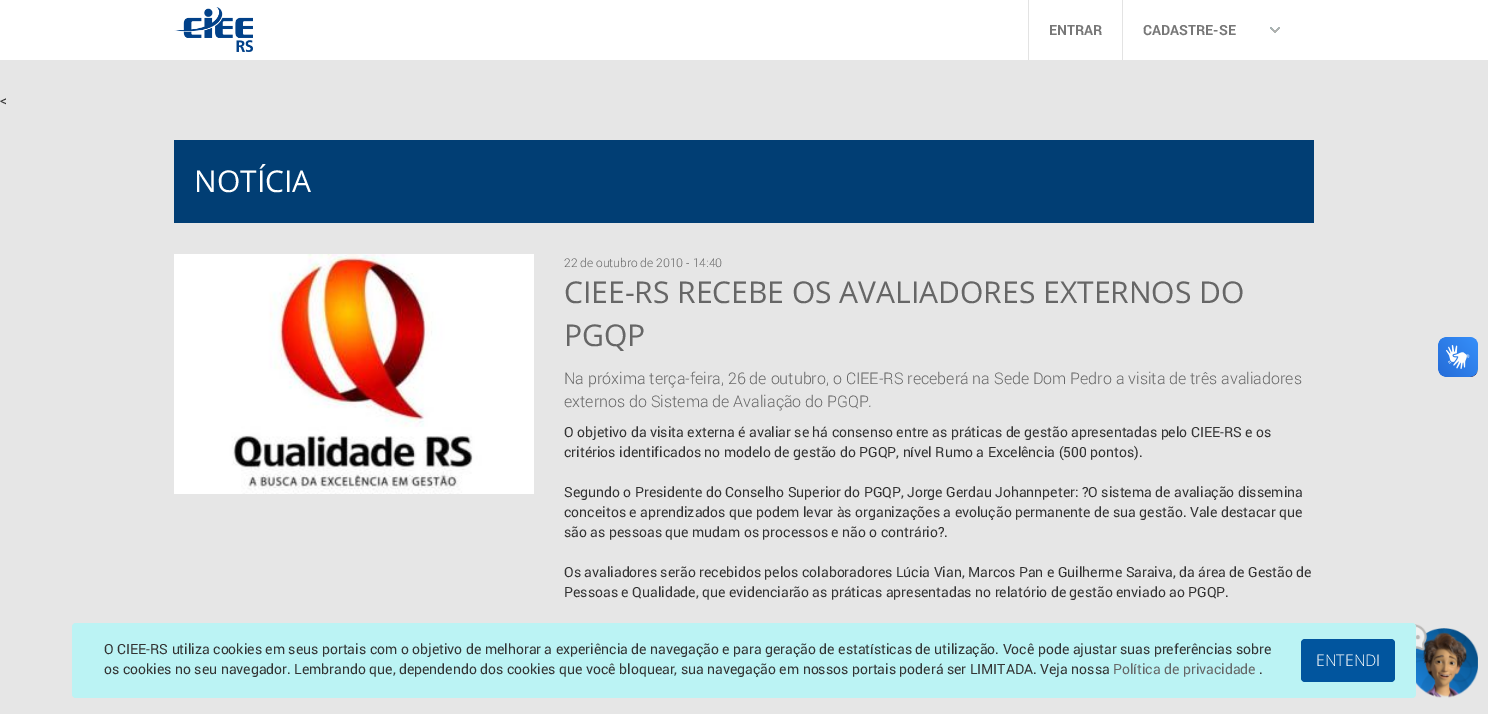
%!PS
<< /PageSize [1488 714] >> setpagedevice
/roundrect { 5 dict begin { /r /h /w /y /x } { exch def } forall
  x r add y moveto x w add y 2 copy h add r arct x w add y h add x 1 index r arct
  x y h add x y r arct x y 2 copy exch w add exch r arct closepath end } def
/picture { 5 dict begin { /h /w /y /x /name } { exch def } forall
  gsave x y translate w h scale
  w h 8 [w 0 0 h 0 0] name (r) file false 3 colorimage grestore end } def
0 714 translate 1 -1 scale
4 setmiterlimit
0.902 setgray
0 0 1488 714 rectfill
1 setgray
0 0 1488 60 rectfill
(img1.rgb) 174 7 79 45 picture
0.89 setgray
1028 0 1 60 rectfill
/Roboto-Bold [14 0 0 -14 0 0] selectfont
0.467 setgray
1049 35 moveto (ENTRAR) show
0.89 setgray
1122 0 1 60 rectfill
0.467 setgray
1143 35 moveto (CADASTRE-SE) show
(img2.rgb) 1270 27 10 6 picture
/Roboto-Regular [14 0 0 -14 0 0] selectfont
0.2 setgray
0 105 moveto (<) show
0.004 0.243 0.455 setrgbcolor
174 140 1140 83 rectfill
/OpenSans-Regular [30 0 0 -30 0 0] selectfont
1 setgray
194 192 moveto (NOTÍCIA) show
(img3.rgb) 174 254 360 240 picture
/Roboto-Light [12 0 0 -12 0 0] selectfont
0.4 setgray
564 267 moveto (22 de outubro de 2010 - 14:40) show
/OpenSans-Regular [30 0 0 -30 0 0] selectfont
564 303 moveto (CIEE-RS RECEBE OS AVALIADORES EXTERNOS DO) show
564 346 moveto (PGQP) show
/Roboto-Light [16 0 0 -16 0 0] selectfont
564 384 moveto (Na próxima terça-feira, 26 de outubro, o CIEE-RS receberá na Sede Dom Pedro a visita de três avaliadores) show
564 407 moveto (externos do Sistema de Avaliação do PGQP.) show
/Roboto-Regular [14 0 0 -14 0 0] selectfont
0.2 setgray
564 437 moveto (O objetivo da visita externa é avaliar se há consenso entre as práticas de gestão apresentadas pelo CIEE-RS e os) show
564 457 moveto (critérios identificados no modelo de gestão do PGQP, nível Rumo a Excelência \(500 pontos\).) show
564 497 moveto (Segundo o Presidente do Conselho Superior do PGQP, Jorge Gerdau Johannpeter: ?O sistema de avaliação dissemina) show
564 517 moveto (conceitos e aprendizados que podem levar às organizações a evolução permanente de sua gestão. Vale destacar que) show
564 537 moveto (são as pessoas que mudam os processos e não o contrário?.) show
564 577 moveto (Os avaliadores serão recebidos pelos colaboradores Lúcia Vian, Marcos Pan e Guilherme Saraiva, da área de Gestão de) show
564 597 moveto (Pessoas e Qualidade, que evidenciarão as práticas apresentadas no relatório de gestão enviado ao PGQP.) show
(img4.rgb) 1438 337 40 40 picture
(img5.rgb) 1438 337 40 40 picture
(img6.rgb) 1414 624 64 74 picture
0.733 0.953 0.957 setrgbcolor
72 623 1344 75 4 roundrect fill
0.2 setgray
104 654 moveto (O CIEE-RS utiliza cookies em seus portais com o objetivo de melhorar a experiência de navegação e para geração de estatísticas de utilização. Você pode ajustar suas preferências sobre) show
104 674 moveto (os cookies no seu navegador. Lembrando que, dependendo dos cookies que você bloquear, sua navegação em nossos portais poderá ser LIMITADA. Veja nossa) show
0.4 setgray
1113 674 moveto (Política de privacidade) show
0.2 setgray
1259 674 moveto (.) show
0.004 0.333 0.62 setrgbcolor
1301 639 94 43 4 roundrect fill
/OpenSans-Light [16 0 0 -16 0 0] selectfont
1 setgray
1316 666 moveto (ENTENDI) show
showpage
